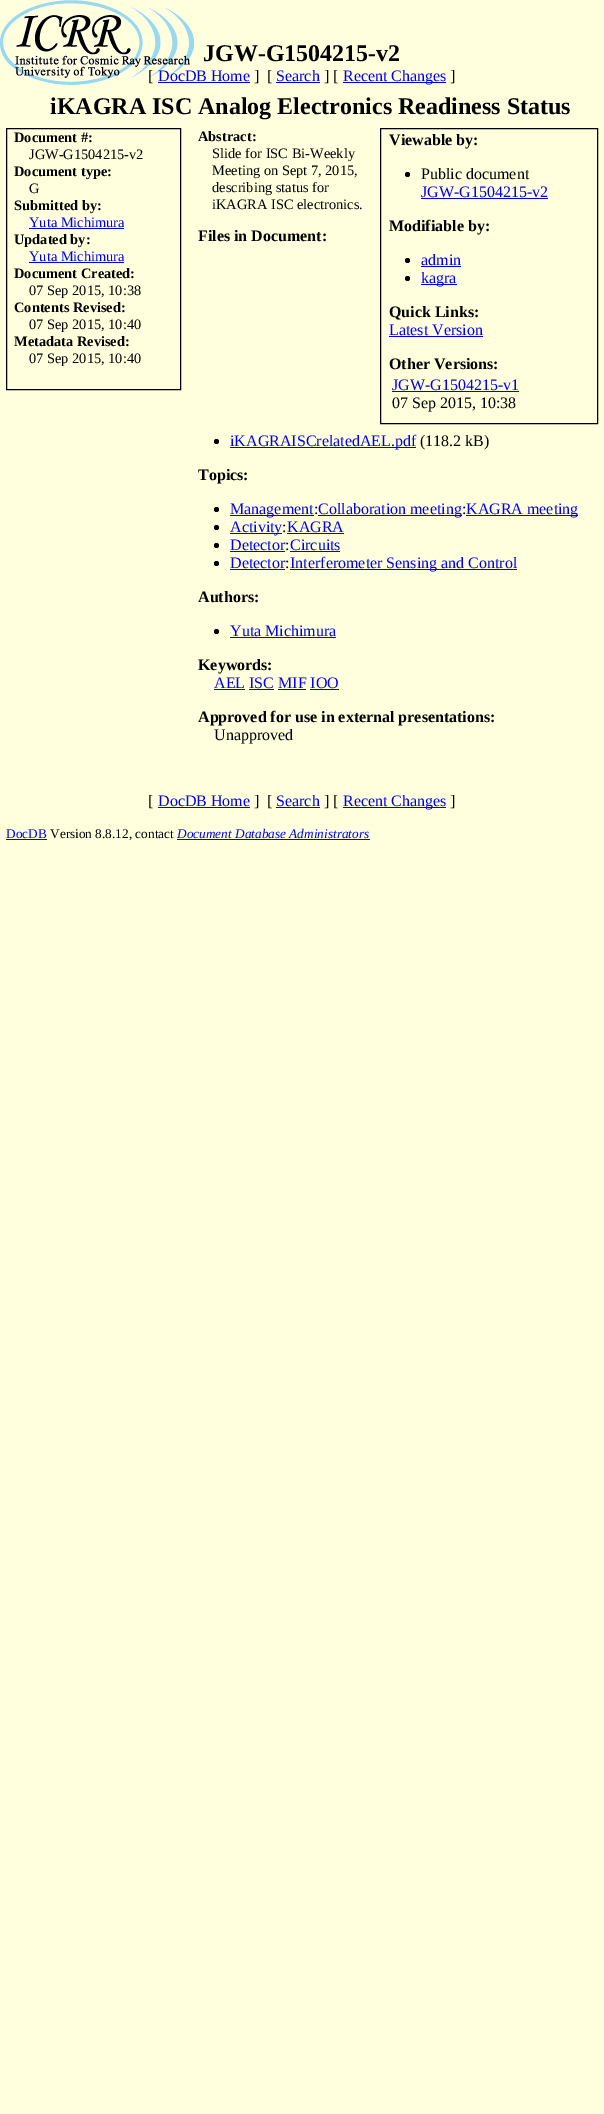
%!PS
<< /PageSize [604 2114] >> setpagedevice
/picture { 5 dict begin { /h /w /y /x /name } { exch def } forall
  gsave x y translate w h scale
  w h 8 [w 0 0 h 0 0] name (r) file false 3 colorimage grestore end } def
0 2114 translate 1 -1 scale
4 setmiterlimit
1 1 0.867 setrgbcolor
0 0 604 2114 rectfill
(img1.rgb) 0 0 194 85 picture
/LiberationSerif-Bold [24 0 0 -24 0 0] selectfont
0 setgray
203 61 moveto (JGW-G1504215-v2) show
/LiberationSerif-Regular [16 0 0 -16 0 0] selectfont
148 81 moveto ([) show
0 0 0.933 setrgbcolor
158 81 moveto (DocDB Home) show
158 82 92 1 rectfill
0 setgray
254 81 moveto (]  [) show
0 0 0.933 setrgbcolor
276 81 moveto (Search) show
276 82 44 1 rectfill
0 setgray
324 81 moveto (] [) show
0 0 0.933 setrgbcolor
343 82 103 1 rectfill
343 81 moveto (Recent Changes) show
0 setgray
450 81 moveto (]) show
/LiberationSerif-Bold [24 0 0 -24 0 0] selectfont
50 114 moveto (iKAGRA ISC Analog Electronics Readiness Status) show
6.5 128.5 174 261 rectstroke
/LiberationSerif-Bold [14.4 0 0 -14.4 0 0] selectfont
14 142 moveto (Document #:) show
/LiberationSerif-Regular [14.4 0 0 -14.4 0 0] selectfont
29 159 moveto (JGW-G1504215-v2) show
/LiberationSerif-Bold [14.4 0 0 -14.4 0 0] selectfont
14 176 moveto (Document type:) show
/LiberationSerif-Regular [14.4 0 0 -14.4 0 0] selectfont
29 193 moveto (G) show
/LiberationSerif-Bold [14.4 0 0 -14.4 0 0] selectfont
14 210 moveto (Submitted by:) show
/LiberationSerif-Regular [14.4 0 0 -14.4 0 0] selectfont
0 0 0.933 setrgbcolor
29 227 moveto (Yuta Michimura) show
29 228 95 1 rectfill
/LiberationSerif-Bold [14.4 0 0 -14.4 0 0] selectfont
0 setgray
14 244 moveto (Updated by:) show
/LiberationSerif-Regular [14.4 0 0 -14.4 0 0] selectfont
0 0 0.933 setrgbcolor
29 261 moveto (Yuta Michimura) show
29 262 95 1 rectfill
/LiberationSerif-Bold [14.4 0 0 -14.4 0 0] selectfont
0 setgray
14 278 moveto (Document Created:) show
/LiberationSerif-Regular [14.4 0 0 -14.4 0 0] selectfont
29 295 moveto (07 Sep 2015, 10:38) show
/LiberationSerif-Bold [14.4 0 0 -14.4 0 0] selectfont
14 312 moveto (Contents Revised:) show
/LiberationSerif-Regular [14.4 0 0 -14.4 0 0] selectfont
29 329 moveto (07 Sep 2015, 10:40) show
/LiberationSerif-Bold [14.4 0 0 -14.4 0 0] selectfont
14 346 moveto (Metadata Revised:) show
/LiberationSerif-Regular [14.4 0 0 -14.4 0 0] selectfont
29 363 moveto (07 Sep 2015, 10:40) show
/LiberationSerif-Bold [14.4 0 0 -14.4 0 0] selectfont
198 141 moveto (Abstract:) show
/LiberationSerif-Regular [14.4 0 0 -14.4 0 0] selectfont
212 158 moveto (Slide for ISC Bi-Weekly) show
212 175 moveto (Meeting on Sept 7, 2015,) show
212 192 moveto (describing status for) show
212 209 moveto (iKAGRA ISC electronics.) show
380.5 128.5 217 295 rectstroke
/LiberationSerif-Bold [16 0 0 -16 0 0] selectfont
389 145 moveto (Viewable by:) show
newpath 407.5 174.5 2.5 0 360 arc closepath fill
/LiberationSerif-Regular [16 0 0 -16 0 0] selectfont
421 179 moveto (Public document) show
0 0 0.933 setrgbcolor
421 197 moveto (JGW-G1504215-v2) show
421 198 127 1 rectfill
/LiberationSerif-Bold [16 0 0 -16 0 0] selectfont
0 setgray
389 231 moveto (Modifiable by:) show
newpath 407.5 260.5 2.5 0 360 arc closepath fill
/LiberationSerif-Regular [16 0 0 -16 0 0] selectfont
0 0 0.933 setrgbcolor
421 265 moveto (admin) show
421 266 40 1 rectfill
0 setgray
newpath 407.5 278.5 2.5 0 360 arc closepath fill
0 0 0.933 setrgbcolor
421 284 36 1 rectfill
421 283 moveto (kagra) show
/LiberationSerif-Bold [16 0 0 -16 0 0] selectfont
0 setgray
389 317 moveto (Quick Links:) show
/LiberationSerif-Regular [16 0 0 -16 0 0] selectfont
0 0 0.933 setrgbcolor
389 335 moveto (Latest Version) show
389 336 94 1 rectfill
/LiberationSerif-Bold [16 0 0 -16 0 0] selectfont
0 setgray
389 369 moveto (Other Versions:) show
/LiberationSerif-Regular [16 0 0 -16 0 0] selectfont
0 0 0.933 setrgbcolor
392 390 moveto (JGW-G1504215-v1) show
392 391 127 1 rectfill
0 setgray
392 408 moveto (07 Sep 2015, 10:38) show
/LiberationSerif-Bold [16 0 0 -16 0 0] selectfont
198 241 moveto (Files in Document:) show
newpath 216.5 441.5 2.5 0 360 arc closepath fill
0 0 0.933 setrgbcolor
230 447 186 1 rectfill
/LiberationSerif-Regular [16 0 0 -16 0 0] selectfont
230 446 moveto (iKAGRAISCrelatedAEL.pdf) show
0 setgray
420 446 moveto (\(118.2 kB\)) show
/LiberationSerif-Bold [16 0 0 -16 0 0] selectfont
198 480 moveto (Topics:) show
newpath 216.5 509.5 2.5 0 360 arc closepath fill
0 0 0.933 setrgbcolor
230 515 84 1 rectfill
/LiberationSerif-Regular [16 0 0 -16 0 0] selectfont
230 514 moveto (Management) show
0 setgray
314 514 moveto (:) show
0 0 0.933 setrgbcolor
318 515 144 1 rectfill
318 514 moveto (Collaboration meeting) show
0 setgray
462 514 moveto (:) show
0 0 0.933 setrgbcolor
466 515 112 1 rectfill
466 514 moveto (KAGRA meeting) show
0 setgray
newpath 216.5 527.5 2.5 0 360 arc closepath fill
0 0 0.933 setrgbcolor
230 533 52 1 rectfill
230 532 moveto (Activity) show
0 setgray
282 532 moveto (:) show
0 0 0.933 setrgbcolor
287 532 moveto (KAGRA) show
287 533 57 1 rectfill
0 setgray
newpath 216.5 545.5 2.5 0 360 arc closepath fill
0 0 0.933 setrgbcolor
230 550 moveto (Detector) show
230 551 55 1 rectfill
0 setgray
285 550 moveto (:) show
0 0 0.933 setrgbcolor
290 550 moveto (Circuits) show
290 551 50 1 rectfill
0 setgray
newpath 216.5 563.5 2.5 0 360 arc closepath fill
0 0 0.933 setrgbcolor
230 568 moveto (Detector) show
230 569 55 1 rectfill
0 setgray
285 568 moveto (:) show
0 0 0.933 setrgbcolor
290 569 227 1 rectfill
290 568 moveto (Interferometer Sensing and Control) show
/LiberationSerif-Bold [16 0 0 -16 0 0] selectfont
0 setgray
198 602 moveto (Authors:) show
newpath 216.5 631.5 2.5 0 360 arc closepath fill
/LiberationSerif-Regular [16 0 0 -16 0 0] selectfont
0 0 0.933 setrgbcolor
230 636 moveto (Yuta Michimura) show
230 637 106 1 rectfill
/LiberationSerif-Bold [16 0 0 -16 0 0] selectfont
0 setgray
198 670 moveto (Keywords:) show
/LiberationSerif-Regular [16 0 0 -16 0 0] selectfont
0 0 0.933 setrgbcolor
214 688 moveto (AEL ISC MIF IOO) show
214 689 31 1 rectfill
249 689 25 1 rectfill
278 689 28 1 rectfill
310 689 29 1 rectfill
/LiberationSerif-Bold [16 0 0 -16 0 0] selectfont
0 setgray
198 722 moveto (Approved for use in external presentations:) show
/LiberationSerif-Regular [16 0 0 -16 0 0] selectfont
214 740 moveto (Unapproved) show
148 806 moveto ([) show
0 0 0.933 setrgbcolor
158 806 moveto (DocDB Home) show
158 807 92 1 rectfill
0 setgray
254 806 moveto (]  [) show
0 0 0.933 setrgbcolor
276 806 moveto (Search) show
276 807 44 1 rectfill
0 setgray
324 806 moveto (] [) show
0 0 0.933 setrgbcolor
343 807 103 1 rectfill
343 806 moveto (Recent Changes) show
0 setgray
450 806 moveto (]) show
/LiberationSerif-Regular [13.3 0 0 -13.3 0 0] selectfont
0 0 0.933 setrgbcolor
6 838 moveto (DocDB) show
6 839 41 1 rectfill
0 setgray
50 838 moveto (Version 8.8.12, contact) show
0 0 0.933 setrgbcolor
177 839 193 1 rectfill
/LiberationSerif-Italic [13.3 0 0 -13.3 0 0] selectfont
177 838 moveto (Document Database Administrators) show
showpage
